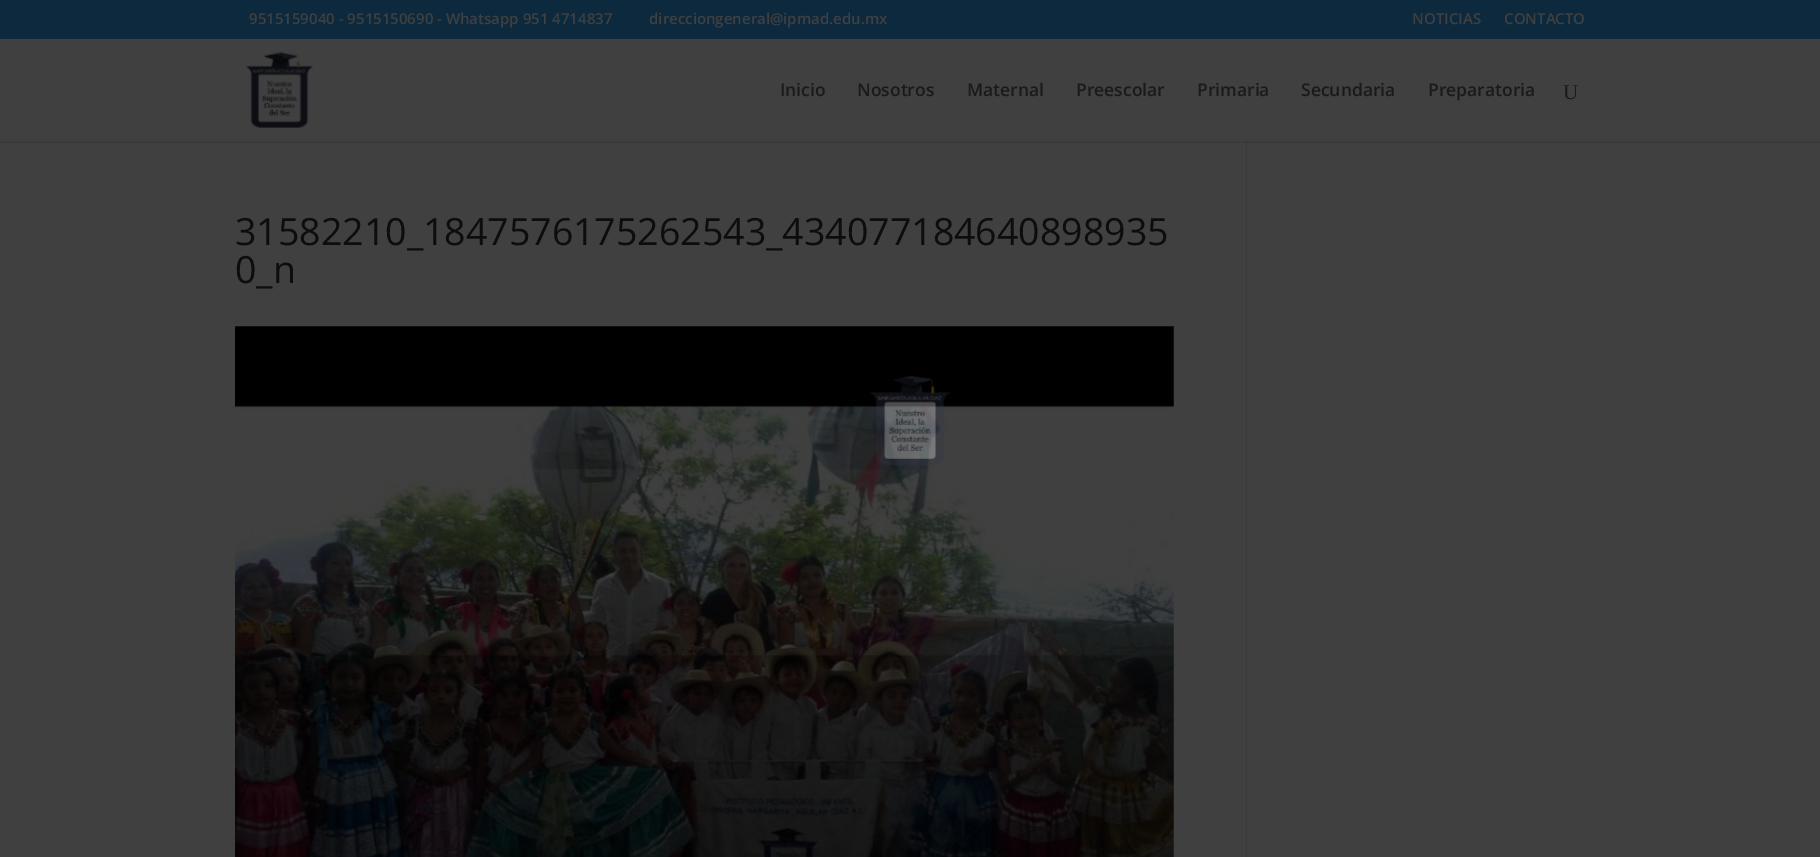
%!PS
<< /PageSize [1820 857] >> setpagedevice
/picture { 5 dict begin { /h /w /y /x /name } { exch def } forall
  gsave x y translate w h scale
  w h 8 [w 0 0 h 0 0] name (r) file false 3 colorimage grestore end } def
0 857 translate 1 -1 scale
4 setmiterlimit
0.251 setgray
0 0 1820 857 rectfill
0.227 setgray
0 141 1820 2 rectfill
0.047 0.161 0.239 setrgbcolor
0 0 1820 39 rectfill
/OpenSans-SemiBold [15 0 0 -15 0 0] selectfont
0.251 setgray
249 24 moveto (9515159040 - 9515150690 - Whatsapp 951 4714837) show
649 24 moveto (direcciongeneral@ipmad.edu.mx) show
1412 24 moveto (NOTICIAS) show
1504 24 moveto (CONTACTO) show
0.224 setgray
1246 140 1 717 rectfill
0.251 setgray
1246 140 1 1 rectfill
(img1.rgb) 245 51 68 78 picture
/OpenSans-SemiBold [17.5 0 0 -17.5 0 0] selectfont
0.102 setgray
780 96 moveto (Inicio) show
857 96 moveto (Nosotros) show
967 96 moveto (Maternal) show
1076 96 moveto (Preescolar) show
1197 96 moveto (Primaria) show
1301 96 moveto (Secundaria) show
1428 96 moveto (Preparatoria) show
/LiberationSerif-Regular [21 0 0 -21 0 0] selectfont
1563 99 moveto (U) show
/OpenSans-Regular [37.5 0 0 -37.5 0 0] selectfont
0.051 setgray
235 245 moveto (31582210_1847576175262543_434077184640898935) show
235 283 moveto (0_n) show
(img2.rgb) 235 326 939 531 picture
0.2 setgray
1246 141 1 2 rectfill
(img3.rgb) 870 375 80 91 picture
showpage
